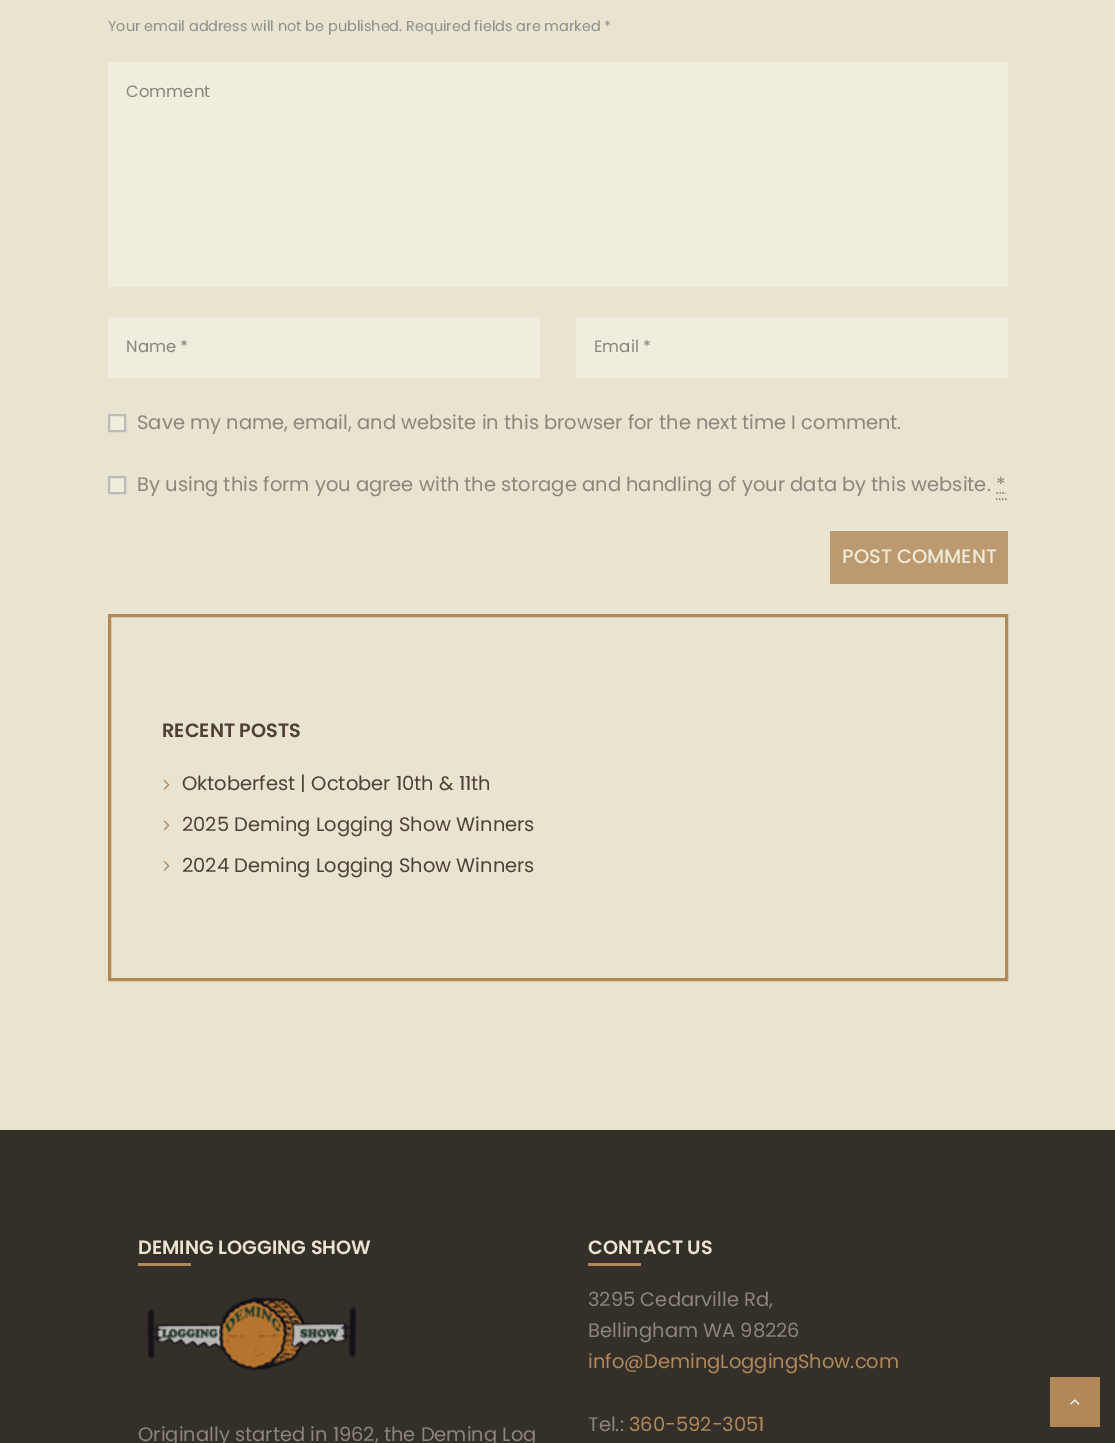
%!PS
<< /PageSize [1115 1443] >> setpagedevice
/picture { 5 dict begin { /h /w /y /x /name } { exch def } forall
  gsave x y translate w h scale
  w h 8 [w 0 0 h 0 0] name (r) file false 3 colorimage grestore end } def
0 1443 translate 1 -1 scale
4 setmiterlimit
0.914 0.894 0.816 setrgbcolor
0 0 1115 1443 rectfill
/Poppins-Regular [14.45 0 0 -14.45 0 0] selectfont
0.565 setgray
108 31 moveto (Your email address will not be published. Required fields are marked *) show
0.941 0.929 0.875 setrgbcolor
108 62 900 225 rectfill
/Poppins-Regular [16.5 0 0 -16.5 0 0] selectfont
0.545 0.522 0.49 setrgbcolor
126 97 moveto (Comment) show
0.941 0.929 0.875 setrgbcolor
108 317 432 61 rectfill
0.545 0.522 0.49 setrgbcolor
126 352 moveto (Name *) show
0.941 0.929 0.875 setrgbcolor
576 317 432 61 rectfill
0.545 0.522 0.49 setrgbcolor
594 352 moveto (Email *) show
0.941 0.929 0.875 setrgbcolor
newpath 109 415 moveto 125 415 lineto 125 431 lineto 109 431 lineto closepath gsave fill grestore
0.733 setgray
2 setlinewidth
stroke
/Poppins-Regular [19.5 0 0 -19.5 0 0] selectfont
0.545 0.522 0.49 setrgbcolor
137 429 moveto (Save my name, email, and website in this browser for the next time I comment.) show
0.941 0.929 0.875 setrgbcolor
newpath 109 477 moveto 125 477 lineto 125 493 lineto 109 493 lineto closepath gsave fill grestore
0.733 setgray
stroke
0.545 0.522 0.49 setrgbcolor
137 491 moveto (By using this form you agree with the storage and handling of your data by this website. *) show
1.5 setlinewidth
newpath 996 499 moveto 997.5 499 lineto 999 499 moveto 1000.5 499 lineto 1002 499 moveto 1003.5 499 lineto 1005 499 moveto 1006.5 499 lineto 996.5 493 moveto 998 493 lineto 999.5 493 moveto 1001 493 lineto 1002.5 493 moveto 1004 493 lineto 1005.5 493 moveto 1006 493 lineto stroke
0.737 0.604 0.435 setrgbcolor
830 531 178 53 rectfill
/Poppins-Medium [19.5 0 0 -19.5 0 0] selectfont
0.937 0.922 0.863 setrgbcolor
842 563 moveto (POST COMMENT) show
0.694 0.533 0.341 setrgbcolor
3 setlinewidth
109.5 615.5 897 364 rectstroke
/Poppins-SemiBold [19.25 0 0 -19.25 0 0] selectfont
0.314 0.251 0.216 setrgbcolor
162 737 moveto (RECENT POSTS) show
(img1.rgb) 163 779 7 11 picture
/Poppins-Regular [19.5 0 0 -19.5 0 0] selectfont
182 790 moveto (Oktoberfest | October 10th & 11th) show
(img2.rgb) 163 820 7 11 picture
182 831 moveto (2025 Deming Logging Show Winners) show
(img1.rgb) 163 860 7 11 picture
182 872 moveto (2024 Deming Logging Show Winners) show
0.208 0.184 0.165 setrgbcolor
0 1130 1115 313 rectfill
/Poppins-SemiBold [19.25 0 0 -19.25 0 0] selectfont
0.914 0.894 0.816 setrgbcolor
138 1254 moveto (DEMING LOGGING SHOW) show
0.694 0.533 0.341 setrgbcolor
138 1263 53 3 rectfill
(img3.rgb) 147 1297 210 74 picture
/Poppins-Regular [19.5 0 0 -19.5 0 0] selectfont
0.545 0.522 0.49 setrgbcolor
138 1441 moveto (Originally started in 1962, the Deming Log) show
/Poppins-SemiBold [19.25 0 0 -19.25 0 0] selectfont
0.914 0.894 0.816 setrgbcolor
588 1254 moveto (CONTACT US) show
0.694 0.533 0.341 setrgbcolor
588 1263 53 3 rectfill
/Poppins-Regular [19.5 0 0 -19.5 0 0] selectfont
0.545 0.522 0.49 setrgbcolor
588 1306 moveto (3295 Cedarville Rd,) show
588 1337 moveto (Bellingham WA 98226) show
0.694 0.533 0.341 setrgbcolor
588 1368 moveto (info@DemingLoggingShow.com) show
0.545 0.522 0.49 setrgbcolor
588 1431 moveto (Tel.:) show
0.694 0.533 0.341 setrgbcolor
629 1431 moveto (360-592-3051) show
1050 1377 50 50 rectfill
(img4.rgb) 1070 1399 10 6 picture
showpage
